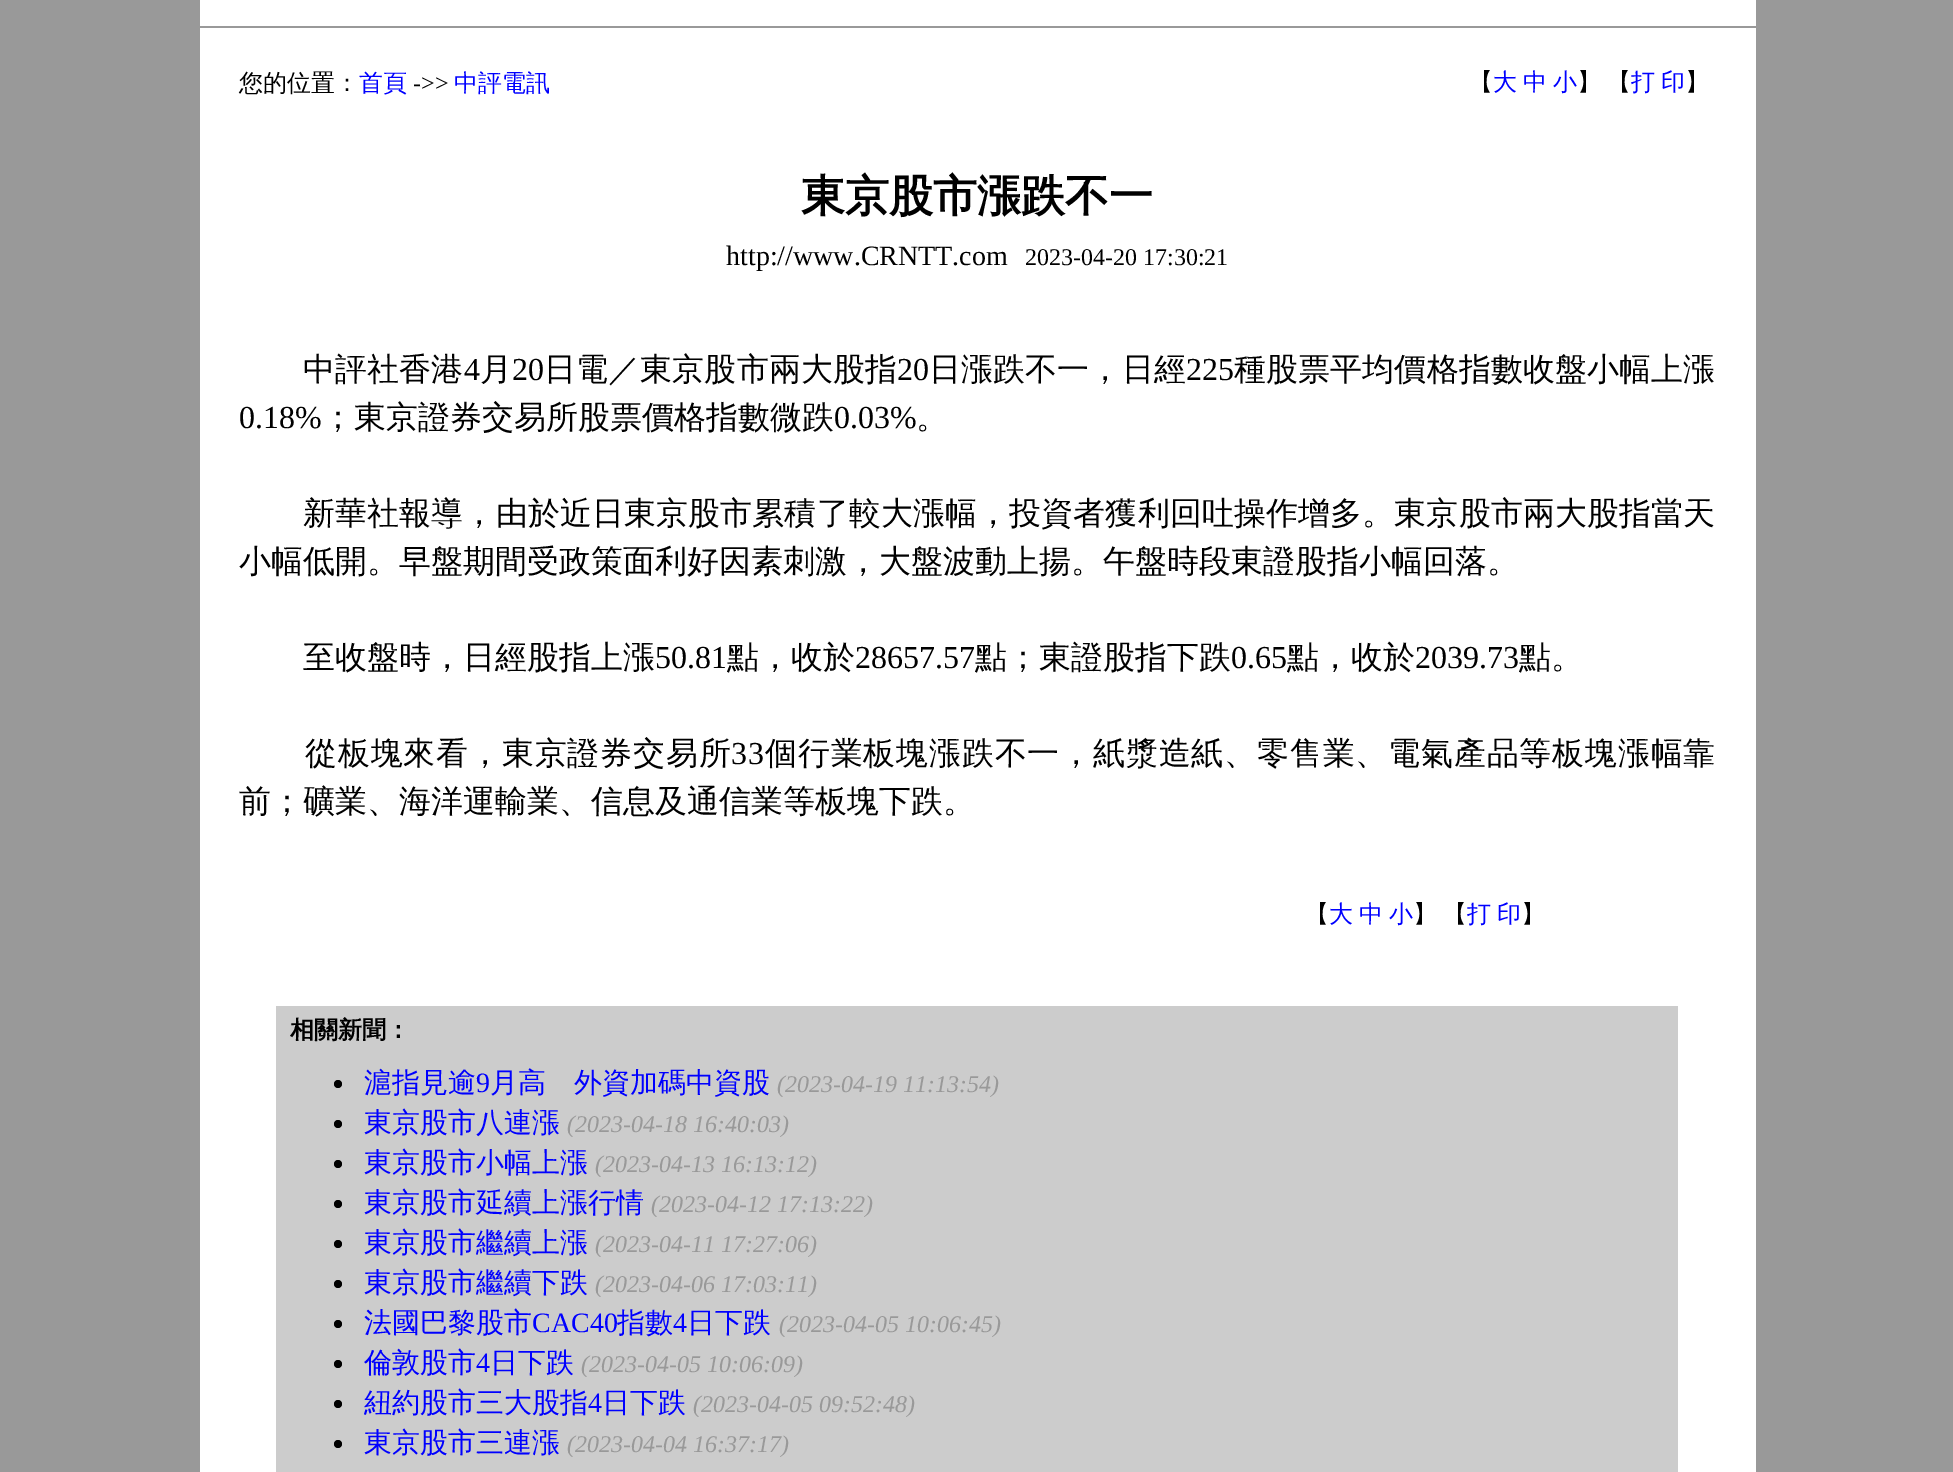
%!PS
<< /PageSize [1953 1472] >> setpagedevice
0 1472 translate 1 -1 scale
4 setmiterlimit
0.6 setgray
0 0 1953 1472 rectfill
1 setgray
200 0 1556 26 rectfill
200 28 1556 1444 rectfill
/WenQuanYiZenHei-Medium [24 0 0 -24 0 0] selectfont
0 setgray
239 91 moveto (您的位置：) show
0 0 1 setrgbcolor
359 91 moveto (首頁) show
/LiberationSerif-Regular [24 0 0 -24 0 0] selectfont
0 setgray
413 91 moveto (->>) show
/WenQuanYiZenHei-Medium [24 0 0 -24 0 0] selectfont
0 0 1 setrgbcolor
454 91 moveto (中評電訊) show
0 setgray
1469 90 moveto (【) show
0 0 1 setrgbcolor
1493 90 moveto (大) show
1523 90 moveto (中) show
1553 90 moveto (小) show
0 setgray
1577 90 moveto (】) show
1607 90 moveto (【) show
0 0 1 setrgbcolor
1631 90 moveto -1 0 32 (打 印) widthshow
0 setgray
1685 90 moveto (】) show
/WenQuanYiZenHei-Bold [44 0 0 -44 0 0] selectfont
801 211 moveto (東京股市漲跌不一) show
/LiberationSerif-Regular [28 0 0 -28 0 0] selectfont
726 265 moveto (http://www.CRNTT.com) show
/LiberationSerif-Regular [24 0 0 -24 0 0] selectfont
1025 265 moveto (2023-04-20 17:30:21) show
/WenQuanYiZenHei-Medium [32 0 0 -32 0 0] selectfont
303 380 moveto 0.1 0 (中評社香港) ashow
/LiberationSerif-Regular [32 0 0 -32 0 0] selectfont
464 380 moveto 0.1 0 (4) ashow
/WenQuanYiZenHei-Medium [32 0 0 -32 0 0] selectfont
480 380 moveto 0.1 0 (月) ashow
/LiberationSerif-Regular [32 0 0 -32 0 0] selectfont
512 380 moveto 0.1 0 (20) ashow
/WenQuanYiZenHei-Medium [32 0 0 -32 0 0] selectfont
544 380 moveto 0.1 0 (日電／東京股市兩大股指) ashow
/LiberationSerif-Regular [32 0 0 -32 0 0] selectfont
897 380 moveto 0.1 0 (20) ashow
/WenQuanYiZenHei-Medium [32 0 0 -32 0 0] selectfont
929 380 moveto 0.1 0 (日漲跌不一，日經) ashow
/LiberationSerif-Regular [32 0 0 -32 0 0] selectfont
1186 380 moveto 0.1 0 (225) ashow
/WenQuanYiZenHei-Medium [32 0 0 -32 0 0] selectfont
1234 380 moveto 0.1 0 (種股票平均價格指數收盤小幅上漲) ashow
/LiberationSerif-Regular [32 0 0 -32 0 0] selectfont
239 428 moveto (0.18%) show
/WenQuanYiZenHei-Medium [32 0 0 -32 0 0] selectfont
322 428 moveto (；東京證券交易所股票價格指數微跌) show
/LiberationSerif-Regular [32 0 0 -32 0 0] selectfont
834 428 moveto (0.03%) show
/WenQuanYiZenHei-Medium [32 0 0 -32 0 0] selectfont
916 428 moveto (。) show
303 524 moveto 0.1 0 (新華社報導，由於近日東京股市累積了較大漲幅，投資者獲利回吐操作增多。東京股市兩大股指當天) ashow
239 572 moveto (小幅低開。早盤期間受政策面利好因素刺激，大盤波動上揚。午盤時段東證股指小幅回落。) show
303 668 moveto (至收盤時，日經股指上漲) show
/LiberationSerif-Regular [32 0 0 -32 0 0] selectfont
655 668 moveto (50.81) show
/WenQuanYiZenHei-Medium [32 0 0 -32 0 0] selectfont
727 668 moveto (點，收於) show
/LiberationSerif-Regular [32 0 0 -32 0 0] selectfont
855 668 moveto (28657.57) show
/WenQuanYiZenHei-Medium [32 0 0 -32 0 0] selectfont
975 668 moveto (點；東證股指下跌) show
/LiberationSerif-Regular [32 0 0 -32 0 0] selectfont
1231 668 moveto (0.65) show
/WenQuanYiZenHei-Medium [32 0 0 -32 0 0] selectfont
1287 668 moveto (點，收於) show
/LiberationSerif-Regular [32 0 0 -32 0 0] selectfont
1415 668 moveto (2039.73) show
/WenQuanYiZenHei-Medium [32 0 0 -32 0 0] selectfont
1519 668 moveto (點。) show
305 764 moveto 0.8 0 (從板塊來看，東京證券交易所) ashow
/LiberationSerif-Regular [32 0 0 -32 0 0] selectfont
731 764 moveto 0.8 0 (33) ashow
/WenQuanYiZenHei-Medium [32 0 0 -32 0 0] selectfont
765 764 moveto 0.8 0 (個行業板塊漲跌不一，紙漿造紙、零售業、電氣產品等板塊漲幅靠) ashow
239 812 moveto (前；礦業、海洋運輸業、信息及通信業等板塊下跌。) show
/WenQuanYiZenHei-Medium [24 0 0 -24 0 0] selectfont
1305 922 moveto (【) show
0 0 1 setrgbcolor
1329 922 moveto (大) show
1359 922 moveto (中) show
1389 922 moveto (小) show
0 setgray
1413 922 moveto (】) show
1443 922 moveto (【) show
0 0 1 setrgbcolor
1467 922 moveto -1 0 32 (打 印) widthshow
0 setgray
1521 922 moveto (】) show
0.8 setgray
276 1006 1402 466 rectfill
/WenQuanYiZenHei-Bold [24 0 0 -24 0 0] selectfont
0 setgray
290 1038 moveto (相關新聞：) show
newpath 338 1084 4 0 360 arc closepath fill
/WenQuanYiZenHei-Medium [28 0 0 -28 0 0] selectfont
0 0 1 setrgbcolor
364 1092 moveto (滬指見逾) show
/LiberationSerif-Regular [28 0 0 -28 0 0] selectfont
476 1092 moveto (9) show
/WenQuanYiZenHei-Medium [28 0 0 -28 0 0] selectfont
490 1092 moveto (月高　外資加碼中資股) show
/LiberationSerif-Italic [24 0 0 -24 0 0] selectfont
0.6 setgray
777 1092 moveto (\(2023-04-19 11:13:54\)) show
0 setgray
newpath 338 1124 4 0 360 arc closepath fill
/WenQuanYiZenHei-Medium [28 0 0 -28 0 0] selectfont
0 0 1 setrgbcolor
364 1132 moveto (東京股市八連漲) show
/LiberationSerif-Italic [24 0 0 -24 0 0] selectfont
0.6 setgray
567 1132 moveto (\(2023-04-18 16:40:03\)) show
0 setgray
newpath 338 1164 4 0 360 arc closepath fill
/WenQuanYiZenHei-Medium [28 0 0 -28 0 0] selectfont
0 0 1 setrgbcolor
364 1172 moveto (東京股市小幅上漲) show
/LiberationSerif-Italic [24 0 0 -24 0 0] selectfont
0.6 setgray
595 1172 moveto (\(2023-04-13 16:13:12\)) show
0 setgray
newpath 338 1204 4 0 360 arc closepath fill
/WenQuanYiZenHei-Medium [28 0 0 -28 0 0] selectfont
0 0 1 setrgbcolor
364 1212 moveto (東京股市延續上漲行情) show
/LiberationSerif-Italic [24 0 0 -24 0 0] selectfont
0.6 setgray
651 1212 moveto (\(2023-04-12 17:13:22\)) show
0 setgray
newpath 338 1244 4 0 360 arc closepath fill
/WenQuanYiZenHei-Medium [28 0 0 -28 0 0] selectfont
0 0 1 setrgbcolor
364 1252 moveto (東京股市繼續上漲) show
/LiberationSerif-Italic [24 0 0 -24 0 0] selectfont
0.6 setgray
595 1252 moveto (\(2023-04-11 17:27:06\)) show
0 setgray
newpath 338 1284 4 0 360 arc closepath fill
/WenQuanYiZenHei-Medium [28 0 0 -28 0 0] selectfont
0 0 1 setrgbcolor
364 1292 moveto (東京股市繼續下跌) show
/LiberationSerif-Italic [24 0 0 -24 0 0] selectfont
0.6 setgray
595 1292 moveto (\(2023-04-06 17:03:11\)) show
0 setgray
newpath 338 1324 4 0 360 arc closepath fill
/WenQuanYiZenHei-Medium [28 0 0 -28 0 0] selectfont
0 0 1 setrgbcolor
364 1332 moveto (法國巴黎股市) show
/LiberationSerif-Regular [28 0 0 -28 0 0] selectfont
532 1332 moveto (CAC40) show
/WenQuanYiZenHei-Medium [28 0 0 -28 0 0] selectfont
617 1332 moveto (指數) show
/LiberationSerif-Regular [28 0 0 -28 0 0] selectfont
673 1332 moveto (4) show
/WenQuanYiZenHei-Medium [28 0 0 -28 0 0] selectfont
687 1332 moveto (日下跌) show
/LiberationSerif-Italic [24 0 0 -24 0 0] selectfont
0.6 setgray
779 1332 moveto (\(2023-04-05 10:06:45\)) show
0 setgray
newpath 338 1364 4 0 360 arc closepath fill
/WenQuanYiZenHei-Medium [28 0 0 -28 0 0] selectfont
0 0 1 setrgbcolor
364 1372 moveto (倫敦股市) show
/LiberationSerif-Regular [28 0 0 -28 0 0] selectfont
476 1372 moveto (4) show
/WenQuanYiZenHei-Medium [28 0 0 -28 0 0] selectfont
490 1372 moveto (日下跌) show
/LiberationSerif-Italic [24 0 0 -24 0 0] selectfont
0.6 setgray
581 1372 moveto (\(2023-04-05 10:06:09\)) show
0 setgray
newpath 338 1404 4 0 360 arc closepath fill
/WenQuanYiZenHei-Medium [28 0 0 -28 0 0] selectfont
0 0 1 setrgbcolor
364 1412 moveto (紐約股市三大股指) show
/LiberationSerif-Regular [28 0 0 -28 0 0] selectfont
588 1412 moveto (4) show
/WenQuanYiZenHei-Medium [28 0 0 -28 0 0] selectfont
602 1412 moveto (日下跌) show
/LiberationSerif-Italic [24 0 0 -24 0 0] selectfont
0.6 setgray
693 1412 moveto (\(2023-04-05 09:52:48\)) show
0 setgray
newpath 338 1444 4 0 360 arc closepath fill
/WenQuanYiZenHei-Medium [28 0 0 -28 0 0] selectfont
0 0 1 setrgbcolor
364 1452 moveto (東京股市三連漲) show
/LiberationSerif-Italic [24 0 0 -24 0 0] selectfont
0.6 setgray
567 1452 moveto (\(2023-04-04 16:37:17\)) show
showpage
